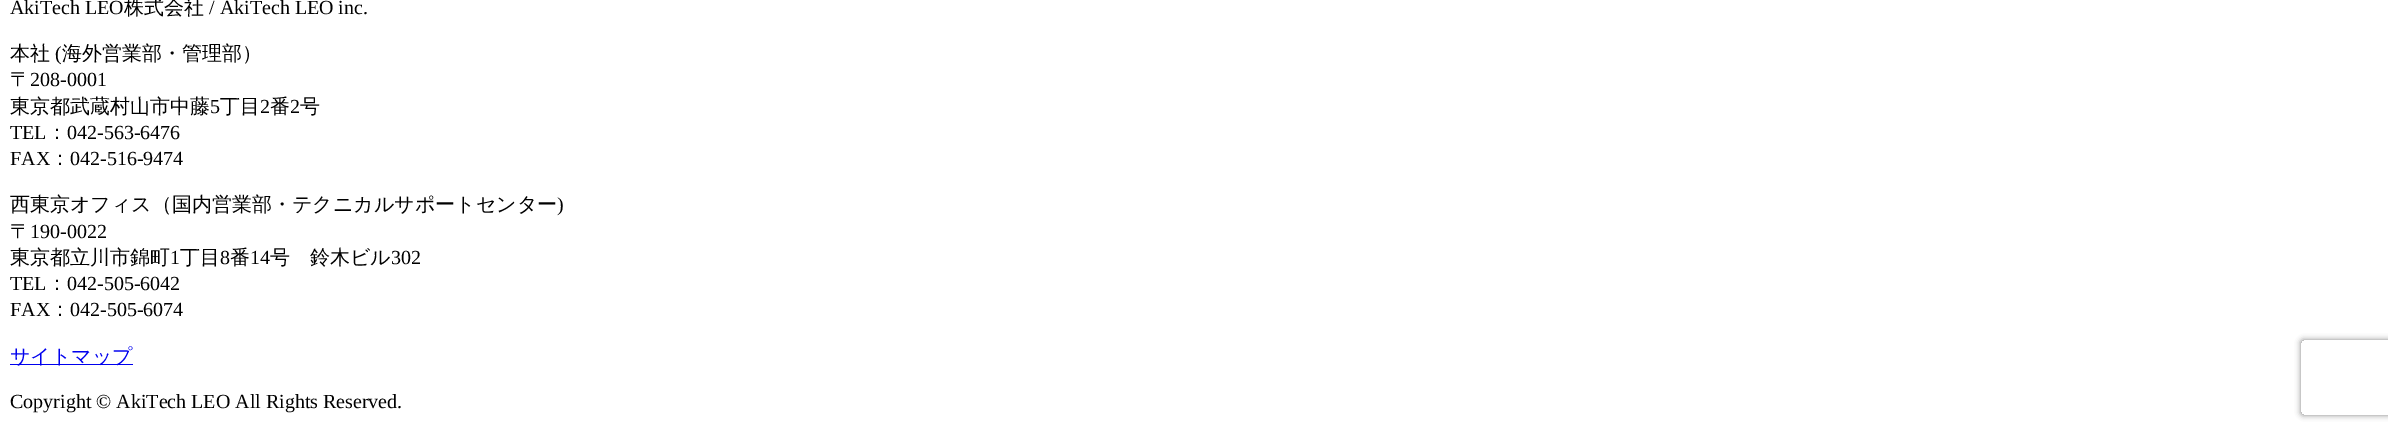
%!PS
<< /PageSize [2388 432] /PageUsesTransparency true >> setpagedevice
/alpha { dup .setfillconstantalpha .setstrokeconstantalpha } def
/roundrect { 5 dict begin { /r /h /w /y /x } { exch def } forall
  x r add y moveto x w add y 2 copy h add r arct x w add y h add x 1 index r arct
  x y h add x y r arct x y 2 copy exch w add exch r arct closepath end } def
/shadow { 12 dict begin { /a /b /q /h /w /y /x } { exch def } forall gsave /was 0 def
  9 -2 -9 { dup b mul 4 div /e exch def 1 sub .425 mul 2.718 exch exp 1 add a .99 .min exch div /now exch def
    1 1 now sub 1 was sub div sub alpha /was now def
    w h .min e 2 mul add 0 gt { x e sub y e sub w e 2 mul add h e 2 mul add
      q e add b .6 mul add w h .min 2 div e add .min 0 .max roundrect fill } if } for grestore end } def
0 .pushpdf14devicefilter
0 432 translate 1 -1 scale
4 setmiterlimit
1 setgray
0 0 2388 432 rectfill
/LiberationSerif-Regular [20 0 0 -20 0 0] selectfont
0 setgray
10 14 moveto (AkiTech LEO) show
/WenQuanYiZenHei-Medium [20 0 0 -20 0 0] selectfont
124 14 moveto (株式会社) show
/LiberationSerif-Regular [20 0 0 -20 0 0] selectfont
209 14 moveto (/ AkiTech LEO inc.) show
/WenQuanYiZenHei-Medium [20 0 0 -20 0 0] selectfont
10 60 moveto (本社) show
/LiberationSerif-Regular [20 0 0 -20 0 0] selectfont
55 60 moveto (\() show
/WenQuanYiZenHei-Medium [20 0 0 -20 0 0] selectfont
62 60 moveto (海外営業部・管理部）) show
10 86 moveto (〒) show
/LiberationSerif-Regular [20 0 0 -20 0 0] selectfont
30 86 moveto (208-0001) show
/WenQuanYiZenHei-Medium [20 0 0 -20 0 0] selectfont
10 113 moveto (東京都武蔵村山市中藤) show
/LiberationSerif-Regular [20 0 0 -20 0 0] selectfont
210 113 moveto (5) show
/WenQuanYiZenHei-Medium [20 0 0 -20 0 0] selectfont
220 113 moveto (丁目) show
/LiberationSerif-Regular [20 0 0 -20 0 0] selectfont
260 113 moveto (2) show
/WenQuanYiZenHei-Medium [20 0 0 -20 0 0] selectfont
270 113 moveto (番) show
/LiberationSerif-Regular [20 0 0 -20 0 0] selectfont
290 113 moveto (2) show
/WenQuanYiZenHei-Medium [20 0 0 -20 0 0] selectfont
300 113 moveto (号) show
/LiberationSerif-Regular [20 0 0 -20 0 0] selectfont
10 139 moveto (TEL) show
/WenQuanYiZenHei-Medium [20 0 0 -20 0 0] selectfont
47 139 moveto (：) show
/LiberationSerif-Regular [20 0 0 -20 0 0] selectfont
67 139 moveto (042-563-6476) show
10 165 moveto (FAX) show
/WenQuanYiZenHei-Medium [20 0 0 -20 0 0] selectfont
50 165 moveto (：) show
/LiberationSerif-Regular [20 0 0 -20 0 0] selectfont
70 165 moveto (042-516-9474) show
/WenQuanYiZenHei-Medium [20 0 0 -20 0 0] selectfont
10 211 moveto (西東京オフィス（国内営業部・テクニカルサポートセンター) show
/LiberationSerif-Regular [20 0 0 -20 0 0] selectfont
557 211 moveto (\)) show
/WenQuanYiZenHei-Medium [20 0 0 -20 0 0] selectfont
10 238 moveto (〒) show
/LiberationSerif-Regular [20 0 0 -20 0 0] selectfont
30 238 moveto (190-0022) show
/WenQuanYiZenHei-Medium [20 0 0 -20 0 0] selectfont
10 264 moveto (東京都立川市錦町) show
/LiberationSerif-Regular [20 0 0 -20 0 0] selectfont
170 264 moveto (1) show
/WenQuanYiZenHei-Medium [20 0 0 -20 0 0] selectfont
180 264 moveto (丁目) show
/LiberationSerif-Regular [20 0 0 -20 0 0] selectfont
220 264 moveto (8) show
/WenQuanYiZenHei-Medium [20 0 0 -20 0 0] selectfont
230 264 moveto (番) show
/LiberationSerif-Regular [20 0 0 -20 0 0] selectfont
250 264 moveto (14) show
/WenQuanYiZenHei-Medium [20 0 0 -20 0 0] selectfont
270 264 moveto (号　鈴木ビル) show
/LiberationSerif-Regular [20 0 0 -20 0 0] selectfont
391 264 moveto (302) show
10 290 moveto (TEL) show
/WenQuanYiZenHei-Medium [20 0 0 -20 0 0] selectfont
47 290 moveto (：) show
/LiberationSerif-Regular [20 0 0 -20 0 0] selectfont
67 290 moveto (042-505-6042) show
10 316 moveto (FAX) show
/WenQuanYiZenHei-Medium [20 0 0 -20 0 0] selectfont
50 316 moveto (：) show
/LiberationSerif-Regular [20 0 0 -20 0 0] selectfont
70 316 moveto (042-505-6074) show
0 0 0.933 setrgbcolor
10 364 123 1 rectfill
/WenQuanYiZenHei-Medium [20 0 0 -20 0 0] selectfont
10 363 moveto (サイトマップ) show
/LiberationSerif-Regular [20 0 0 -20 0 0] selectfont
0 setgray
10 408 moveto (Copyright © AkiTech LEO All Rights Reserved.) show
gsave
newpath 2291 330 moveto 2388 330 lineto 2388 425 lineto 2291 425 lineto closepath 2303.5 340 moveto 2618.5 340 lineto 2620 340 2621 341 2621 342.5 curveto 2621 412.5 lineto 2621 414 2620 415 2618.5 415 curveto 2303.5 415 lineto 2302 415 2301 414 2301 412.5 curveto 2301 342.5 lineto 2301 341 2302 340 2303.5 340 curveto closepath eoclip newpath
0.502 setgray
2301 340 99 75 2.5 3 1 shadow
grestore
.poppdf14devicefilter showpage
